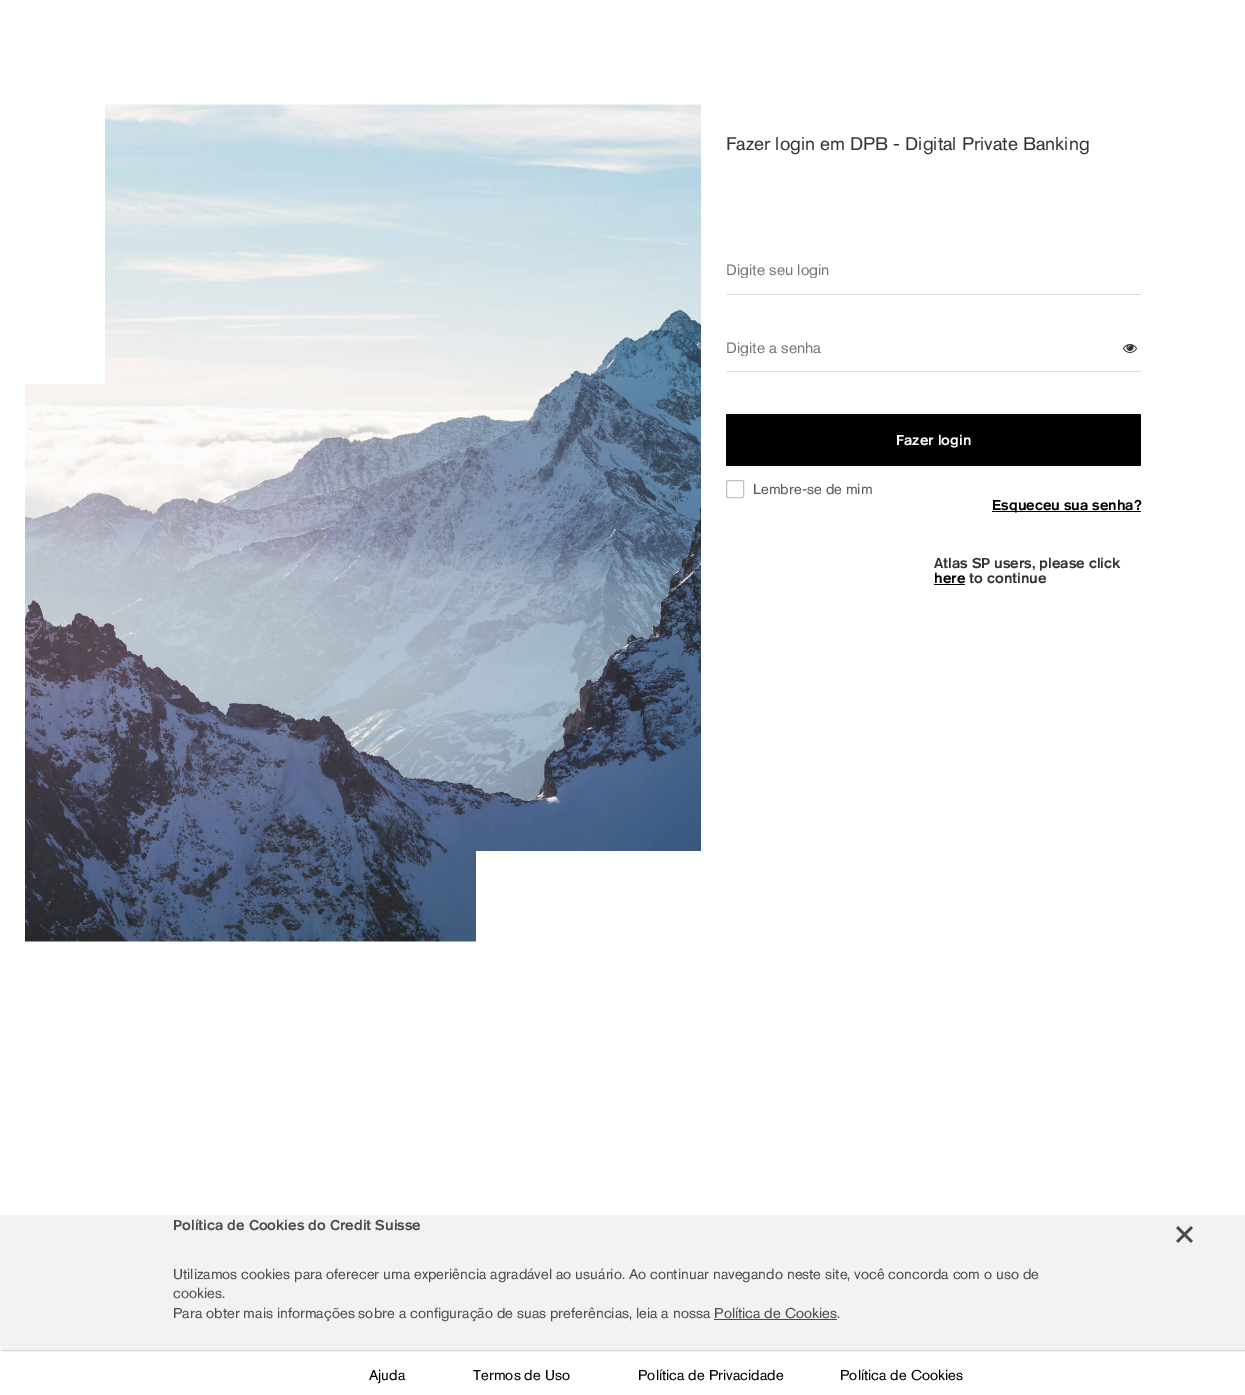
%!PS
<< /PageSize [1245 1395] /PageUsesTransparency true >> setpagedevice
/alpha { dup .setfillconstantalpha .setstrokeconstantalpha } def
/roundrect { 5 dict begin { /r /h /w /y /x } { exch def } forall
  x r add y moveto x w add y 2 copy h add r arct x w add y h add x 1 index r arct
  x y h add x y r arct x y 2 copy exch w add exch r arct closepath end } def
/shadow { 12 dict begin { /a /b /q /h /w /y /x } { exch def } forall gsave /was 0 def
  9 -2 -9 { dup b mul 4 div /e exch def 1 sub .425 mul 2.718 exch exp 1 add a .99 .min exch div /now exch def
    1 1 now sub 1 was sub div sub alpha /was now def
    w h .min e 2 mul add 0 gt { x e sub y e sub w e 2 mul add h e 2 mul add
      q e add b .6 mul add w h .min 2 div e add .min 0 .max roundrect fill } if } for grestore end } def
/picture { 5 dict begin { /h /w /y /x /name } { exch def } forall
  gsave x y translate w h scale
  w h 8 [w 0 0 h 0 0] name (r) file false 3 colorimage grestore end } def
0 .pushpdf14devicefilter
0 1395 translate 1 -1 scale
4 setmiterlimit
1 setgray
0 0 1245 1395 rectfill
(img1.rgb) 25 104 676 838 picture
25 104 80 280 rectfill
476 851 225 91 rectfill
/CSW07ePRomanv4-Regular [18 0 0 -18 0 0] selectfont
0.2 setgray
726 150 moveto (Fazer login em DPB - Digital Private Banking) show
0.867 setgray
726 294 415 1 rectfill
gsave
726 258 415 20 rectclip
/CSW07ePRomanv4-Regular [14.75 0 0 -14.75 0 0] selectfont
0.463 setgray
726 275 moveto (Digite seu login) show
grestore
726 371 415 1 rectfill
gsave
726 336 395 20 rectclip
/CSW07ePRomanv4-Regular [14.75 0 0 -14.75 0 0] selectfont
0.463 setgray
726 353 moveto (Digite a senha) show
grestore
(img2.rgb) 1123 344 14 9 picture
0 setgray
726 414 415 52 1.5 roundrect fill
/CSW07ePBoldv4-Bold [14 0 0 -14 0 0] selectfont
1 setgray
896 445 moveto (Fazer login) show
0.761 setgray
726.5 480.5 17 17 1.5 roundrect stroke
/CSW07ePRomanv4-Regular [14 0 0 -14 0 0] selectfont
0.341 setgray
753 494 moveto (Lembre-se de mim) show
0 setgray
992 511 149 1 rectfill
/CSW07ePBoldv4-Bold [14 0 0 -14 0 0] selectfont
992 510 moveto (Esqueceu sua senha?) show
0.2 setgray
934 568 moveto (Atlas SP users, please click) show
0 setgray
934 583 moveto (here) show
934 584 31 1 rectfill
0.2 setgray
969 583 moveto (to continue) show
0.302 setgray
1 1216 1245 135 0 0.5 0.25 shadow
0.949 setgray
0 1215 1245 135 rectfill
0.302 setgray
173 1230 moveto (Política de Cookies do Credit Suisse) show
(img3.rgb) 1176 1226 17 17 picture
/CSW07ePRomanv4-Regular [14 0 0 -14 0 0] selectfont
173 1279 moveto (Utilizamos cookies para oferecer uma experiência agradável ao usuário. Ao continuar navegando neste site, você concorda com o uso de) show
173 1298 moveto (cookies.) show
173 1318 moveto (Para obter mais informações sobre a configuração de suas preferências, leia a nossa Política de Cookies.) show
714 1319 123 1 rectfill
0 setgray
369 1380 moveto (Ajuda) show
473 1380 moveto (Termos de Uso) show
638 1380 moveto (Política de Privacidade) show
840 1380 moveto (Política de Cookies) show
.poppdf14devicefilter showpage
